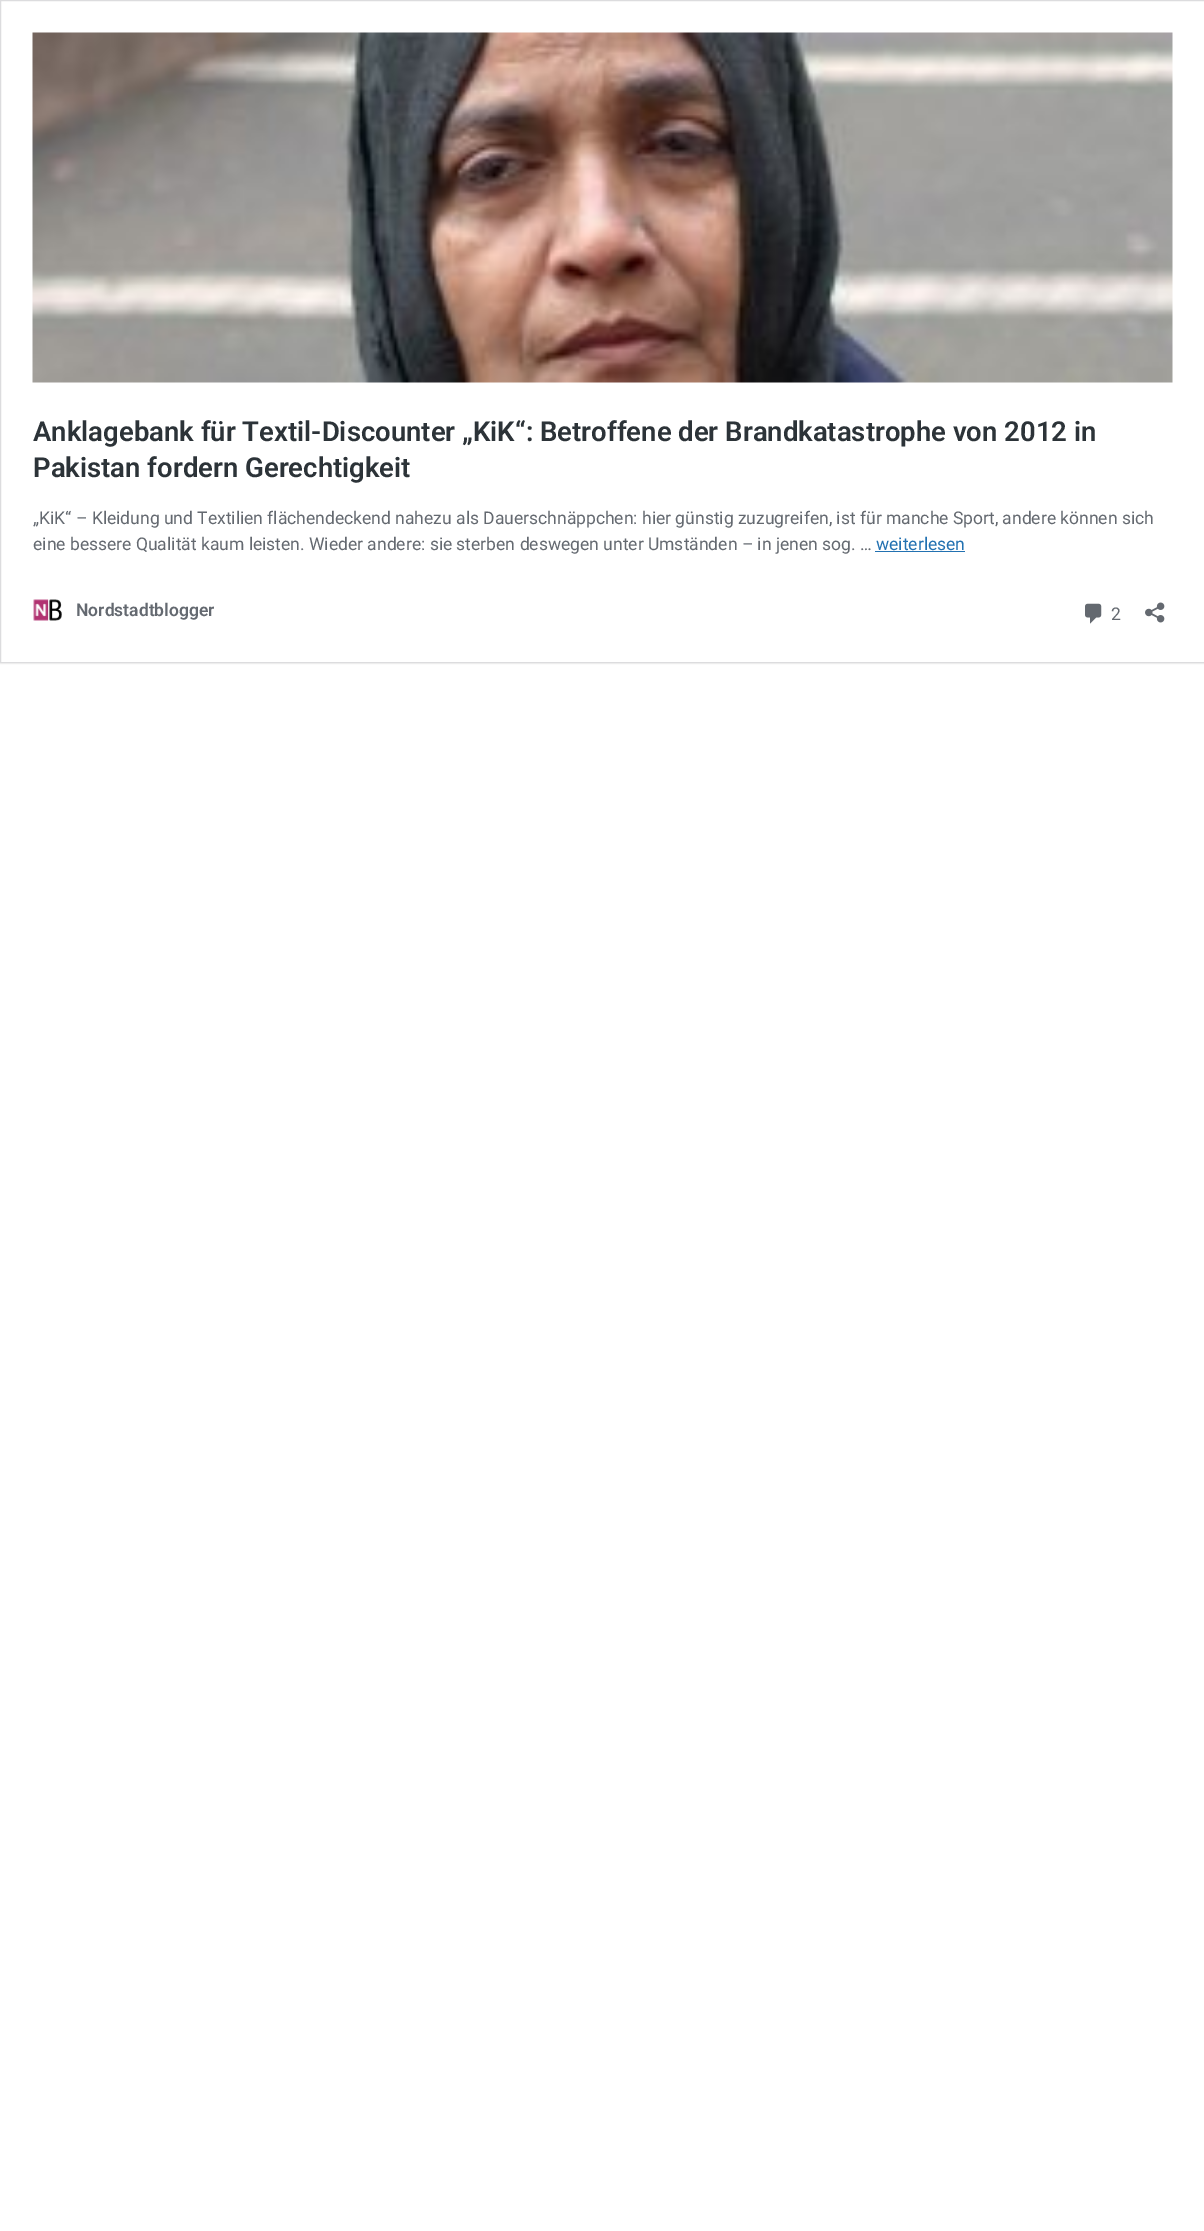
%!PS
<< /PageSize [1204 2231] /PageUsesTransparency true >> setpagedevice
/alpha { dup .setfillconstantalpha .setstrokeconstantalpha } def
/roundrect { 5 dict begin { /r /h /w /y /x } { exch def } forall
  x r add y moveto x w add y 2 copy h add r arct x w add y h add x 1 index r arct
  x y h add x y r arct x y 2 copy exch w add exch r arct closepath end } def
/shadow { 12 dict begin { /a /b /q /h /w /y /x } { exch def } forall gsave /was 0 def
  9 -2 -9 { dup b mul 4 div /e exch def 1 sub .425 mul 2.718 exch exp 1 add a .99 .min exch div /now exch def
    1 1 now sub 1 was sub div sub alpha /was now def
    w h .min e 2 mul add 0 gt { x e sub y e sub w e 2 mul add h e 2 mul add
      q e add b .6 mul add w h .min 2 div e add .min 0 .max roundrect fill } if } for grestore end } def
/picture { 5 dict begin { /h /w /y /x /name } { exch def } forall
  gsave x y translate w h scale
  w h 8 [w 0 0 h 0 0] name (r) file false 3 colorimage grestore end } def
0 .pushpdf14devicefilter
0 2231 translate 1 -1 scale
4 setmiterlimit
1 setgray
0 0 1204 2231 rectfill
0 setgray
0 1 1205 663 0 0.5 0.05 shadow
1 setgray
newpath 0.5 0.5 moveto 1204.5 0.5 lineto 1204.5 662.5 lineto 0.5 662.5 lineto closepath gsave fill grestore
0.863 0.863 0.871 setrgbcolor
stroke
(img1.rgb) 32 32 1141 351 picture
/Roboto-SemiBold [27.5 0 0 -27.5 0 0] selectfont
0.173 0.2 0.22 setrgbcolor
33 441 moveto (Anklagebank für Textil-Discounter „KiK“: Betroffene der Brandkatastrophe von 2012 in) show
33 477 moveto (Pakistan fordern Gerechtigkeit) show
/Roboto-Regular [17.5 0 0 -17.5 0 0] selectfont
0.392 0.412 0.439 setrgbcolor
33 524 moveto („KiK“ – Kleidung und Textilien flächendeckend nahezu als Dauerschnäppchen: hier günstig zuzugreifen, ist für manche Sport, andere können sich) show
33 550 moveto (eine bessere Qualität kaum leisten. Wieder andere: sie sterben deswegen unter Umständen – in jenen sog. …) show
0.133 0.443 0.694 setrgbcolor
876 550 moveto (weiterlesen) show
875 551 90 1 rectfill
(img2.rgb) 33 599 29 22 picture
/Roboto-SemiBold [17.5 0 0 -17.5 0 0] selectfont
0.392 0.412 0.439 setrgbcolor
76 616 moveto (Nordstadtblogger) show
(img3.rgb) 1085 603 17 21 picture
/Roboto-Regular [17.5 0 0 -17.5 0 0] selectfont
1111 620 moveto (2) show
(img4.rgb) 1145 602 20 21 picture
.poppdf14devicefilter showpage
